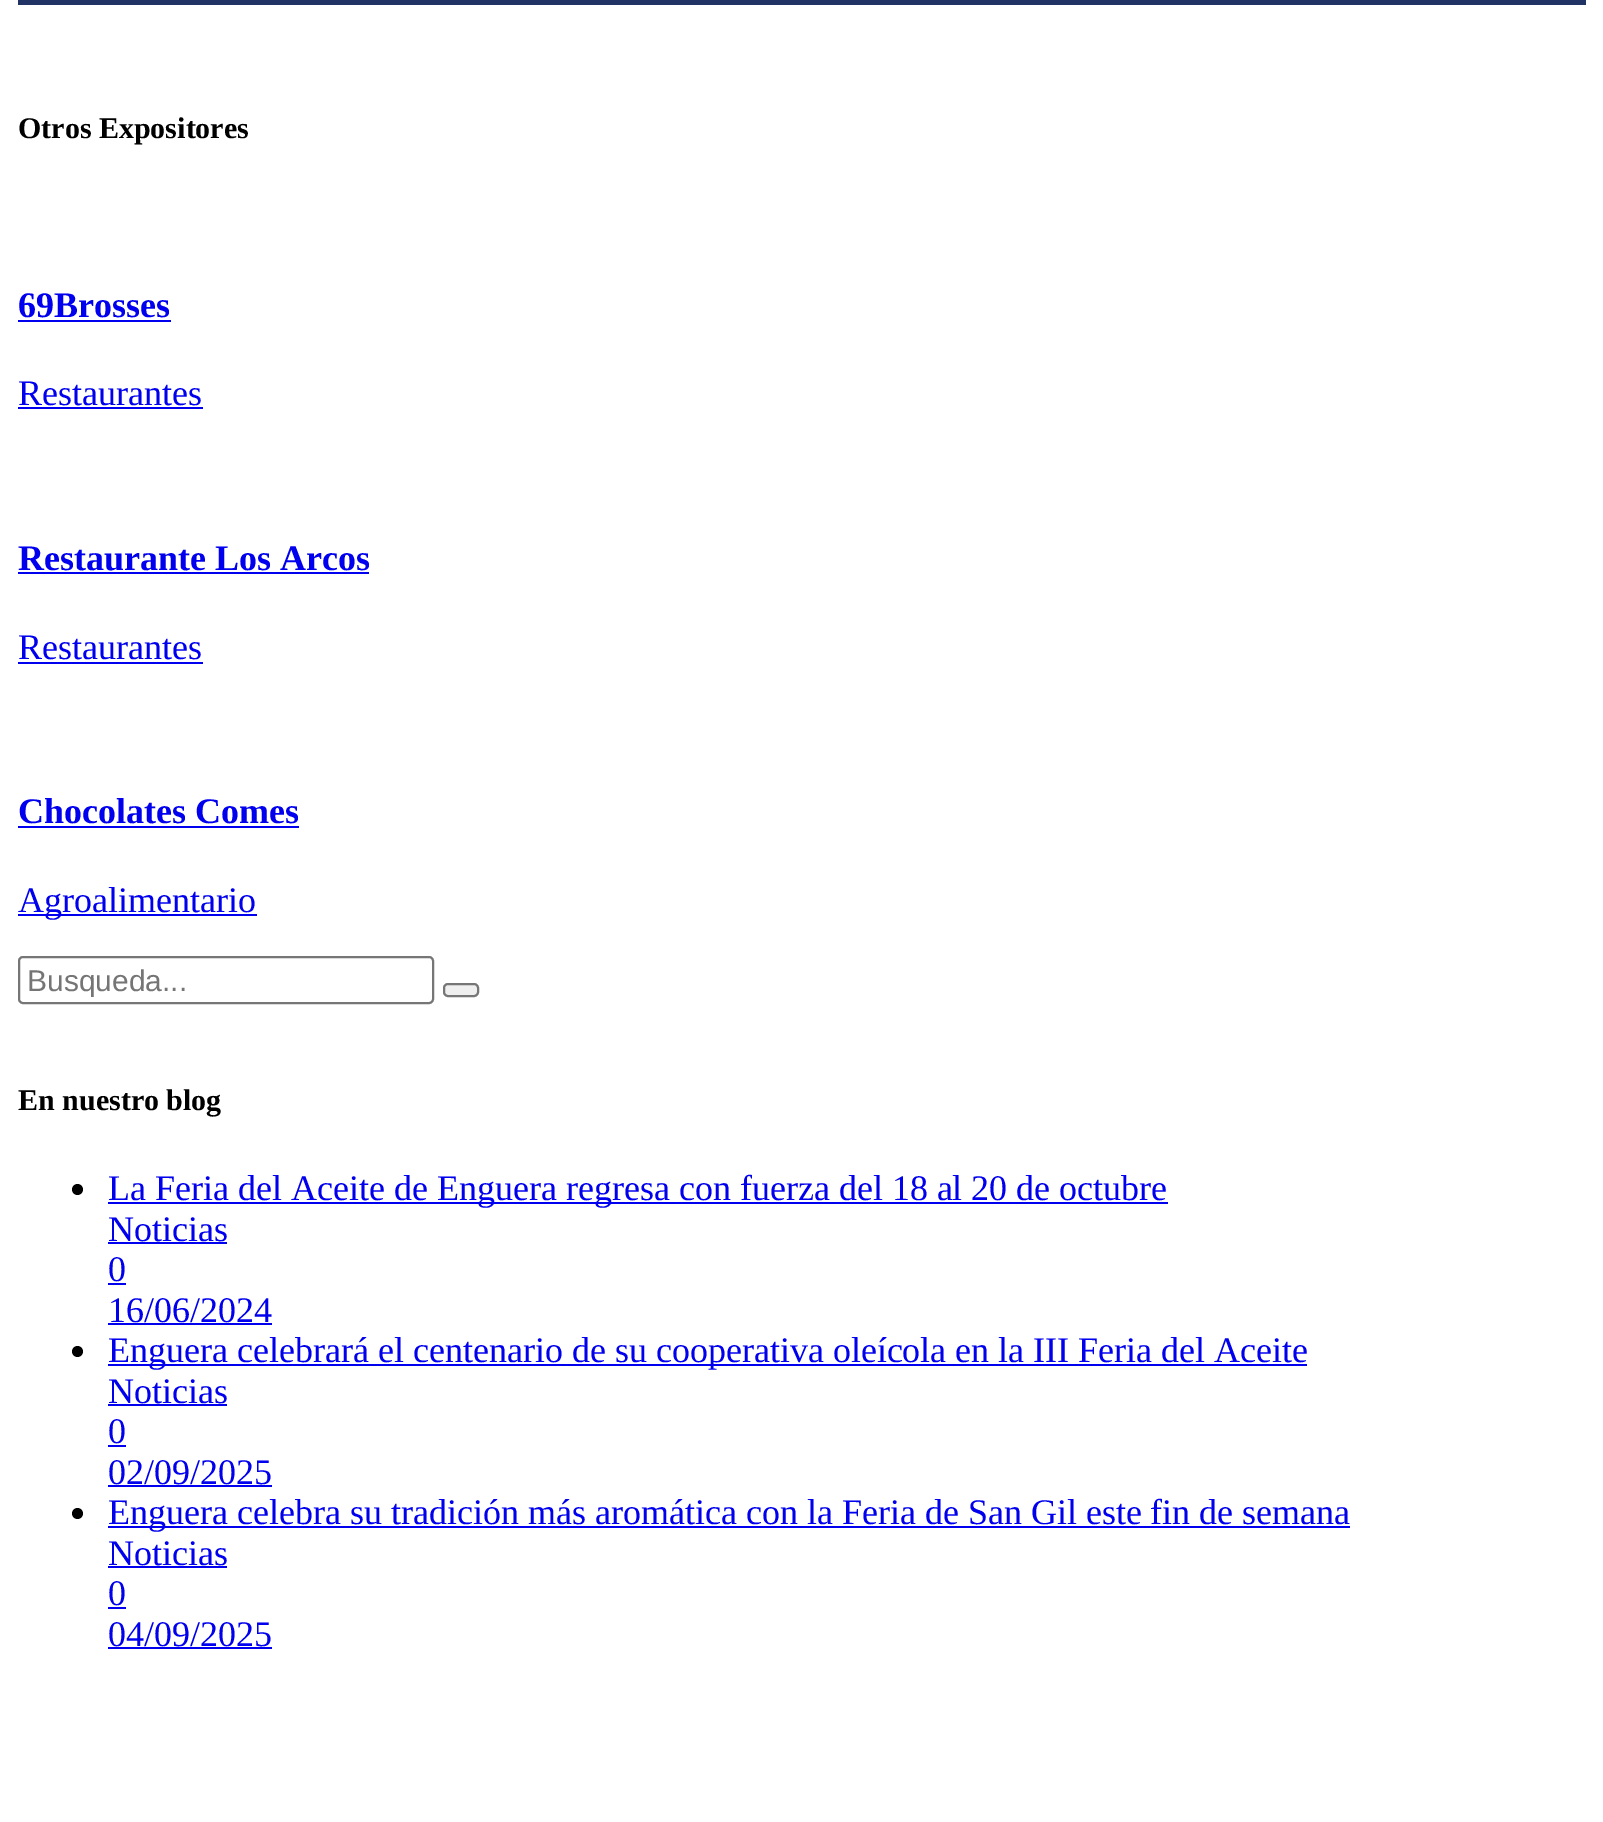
%!PS
<< /PageSize [1603 1822] >> setpagedevice
/roundrect { 5 dict begin { /r /h /w /y /x } { exch def } forall
  x r add y moveto x w add y 2 copy h add r arct x w add y h add x 1 index r arct
  x y h add x y r arct x y 2 copy exch w add exch r arct closepath end } def
0 1822 translate 1 -1 scale
4 setmiterlimit
1 setgray
0 0 1603 1822 rectfill
0.129 0.2 0.392 setrgbcolor
18 0 1568 5 rectfill
/LiberationSerif-Bold [30 0 0 -30 0 0] selectfont
0 setgray
18 138 moveto (Otros Expositores) show
/LiberationSerif-Bold [36 0 0 -36 0 0] selectfont
0 0 0.933 setrgbcolor
18 317 moveto (69Brosses) show
18 320 153 2 rectfill
/LiberationSerif-Regular [36 0 0 -36 0 0] selectfont
18 405 moveto (Restaurantes) show
18 407 185 2 rectfill
/LiberationSerif-Bold [36 0 0 -36 0 0] selectfont
18 570 moveto (Restaurante Los Arcos) show
18 572 351 2 rectfill
/LiberationSerif-Regular [36 0 0 -36 0 0] selectfont
18 659 moveto (Restaurantes) show
18 662 185 2 rectfill
/LiberationSerif-Bold [36 0 0 -36 0 0] selectfont
18 823 moveto (Chocolates Comes) show
18 826 281 2 rectfill
18 914 239 2 rectfill
/LiberationSerif-Regular [36 0 0 -36 0 0] selectfont
18 912 moveto (Agroalimentario) show
0.463 setgray
2 setlinewidth
19 957 414 46 4 roundrect stroke
gsave
27 963 369 34 rectclip
/LiberationSans-Regular [30 0 0 -30 0 0] selectfont
0.459 setgray
27 991 moveto (Busqueda...) show
grestore
0.937 setgray
444 984 34 12 4 roundrect gsave fill grestore
0.463 setgray
stroke
/LiberationSerif-Bold [30 0 0 -30 0 0] selectfont
0 setgray
18 1110 moveto (En nuestro blog) show
newpath 77.5 1189.5 5.5 0 360 arc closepath fill
0 0 0.933 setrgbcolor
108 1202 1060 2 rectfill
/LiberationSerif-Regular [36 0 0 -36 0 0] selectfont
108 1200 moveto (La Feria del Aceite de Enguera regresa con fuerza del 18 al 20 de octubre) show
108 1241 moveto (Noticias) show
108 1242 119 2 rectfill
108 1281 moveto (0) show
108 1283 18 2 rectfill
108 1322 moveto (16/06/2024) show
108 1323 164 2 rectfill
0 setgray
newpath 77.5 1351.5 5.5 0 360 arc closepath fill
0 0 0.933 setrgbcolor
108 1364 1199 2 rectfill
108 1362 moveto (Enguera celebrará el centenario de su cooperativa oleícola en la III Feria del Aceite) show
108 1403 moveto (Noticias) show
108 1404 119 2 rectfill
108 1443 moveto (0) show
108 1445 18 2 rectfill
108 1484 moveto (02/09/2025) show
108 1485 164 2 rectfill
0 setgray
newpath 77.5 1513.5 5.5 0 360 arc closepath fill
0 0 0.933 setrgbcolor
108 1526 1242 2 rectfill
108 1524 moveto (Enguera celebra su tradición más aromática con la Feria de San Gil este fin de semana) show
108 1565 moveto (Noticias) show
108 1566 119 2 rectfill
108 1605 moveto (0) show
108 1607 18 2 rectfill
108 1646 moveto (04/09/2025) show
108 1647 164 2 rectfill
showpage
